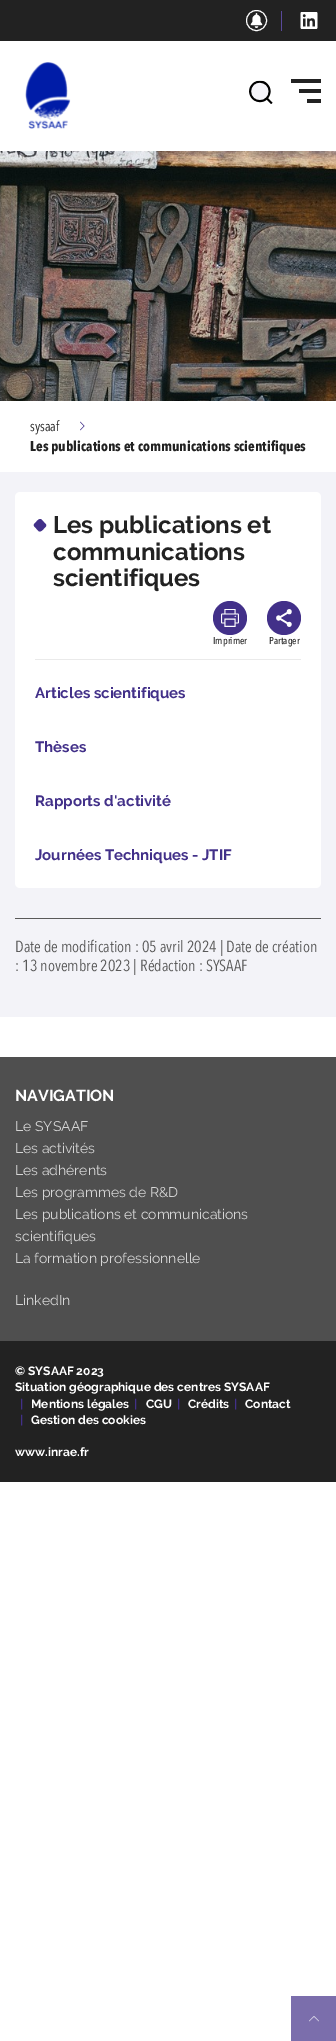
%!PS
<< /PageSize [336 2041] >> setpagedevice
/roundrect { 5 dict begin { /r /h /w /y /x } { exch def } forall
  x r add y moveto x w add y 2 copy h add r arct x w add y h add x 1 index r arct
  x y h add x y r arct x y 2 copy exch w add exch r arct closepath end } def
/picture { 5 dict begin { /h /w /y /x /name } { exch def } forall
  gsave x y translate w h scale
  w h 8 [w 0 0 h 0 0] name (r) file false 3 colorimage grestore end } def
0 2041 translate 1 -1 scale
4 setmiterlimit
1 setgray
0 0 336 2041 rectfill
0.133 setgray
0 0 336 41 rectfill
1 setgray
newpath 256.5 20.5 10 0 360 arc closepath stroke
(img1.rgb) 250 13 13 15 picture
0.349 0.286 0.608 setrgbcolor
281 11 1 20 rectfill
(img2.rgb) 300 12 18 17 picture
(img3.rgb) 25 62 46 67 picture
(img4.rgb) 249 80 24 24 picture
0.133 setgray
291 79 30 4 rectfill
299 89 22 4 rectfill
307 99 14 4 rectfill
(img5.rgb) 0 151 336 250 picture
/AvenirNext-Regular [14 0 0 -14 0 0] selectfont
30 431 moveto (sysaaf) show
(img6.rgb) 80 421 5 10 picture
/AvenirNext-Bold [14 0 0 -14 0 0] selectfont
30 451 moveto (Les publications et communications scientifiques) show
0.953 0.953 0.973 setrgbcolor
0 472 336 545 rectfill
1 setgray
15 492 306 396 5 roundrect fill
0.918 setgray
35 659 266 1 rectfill
0.259 0.188 0.537 setrgbcolor
newpath 41.5 519.5 moveto 46 524.5 lineto 47 526.5 44.5 527.5 43.5 529 curveto 42.5 530 40.5 532.5 38.5 531 curveto 34 526 lineto 33 524 35.5 523 36.5 521.5 curveto 37.5 520.5 39.5 518 41.5 519.5 curveto closepath fill
/Raleway-Bold [24 0 0 -24 0 0] selectfont
0.133 setgray
53 533 moveto (Les publications et) show
53 560 moveto (communications) show
53 586 moveto (scientifiques) show
0.259 0.188 0.537 setrgbcolor
newpath 230 618 17 0 360 arc closepath fill
(img7.rgb) 221 609 18 18 picture
/AvenirNext-Medium [10 0 0 -10 0 0] selectfont
0.133 setgray
213 644 moveto (Imprimer) show
0.259 0.188 0.537 setrgbcolor
newpath 284 618 17 0 360 arc closepath fill
(img8.rgb) 276 609 16 18 picture
0.133 setgray
269 644 moveto (Partager) show
/Raleway-Bold [15 0 0 -15 0 0] selectfont
0.259 0.188 0.537 setrgbcolor
35 698 moveto (Articles scientifiques) show
35 752 moveto (Thèses) show
35 806 moveto (Rapports d'activité) show
35 860 moveto (Journées Techniques - JTIF) show
0.349 setgray
15 918 306 1 rectfill
/AvenirNext-Regular [16 0 0 -16 0 0] selectfont
15 952 moveto (Date de modification : 05 avril 2024 | Date de création) show
15 971 moveto (: 13 novembre 2023 | Rédaction : SYSAAF) show
0.31 setgray
0 1057 336 284 rectfill
/Raleway-Bold [16 0 0 -16 0 0] selectfont
1 setgray
15 1101 moveto (NAVIGATION) show
/Raleway-Regular [14 0 0 -14 0 0] selectfont
0.839 setgray
15 1131 moveto (Le SYSAAF) show
15 1153 moveto (Les activités) show
15 1175 moveto (Les adhérents) show
15 1197 moveto (Les programmes de R&D) show
15 1219 moveto (Les publications et communications) show
15 1241 moveto (scientifiques) show
15 1263 moveto (La formation professionnelle) show
15 1305 moveto (LinkedIn) show
0.133 setgray
0 1341 336 141 rectfill
/Raleway-Bold [12 0 0 -12 0 0] selectfont
1 setgray
15 1375 moveto (© SYSAAF 2023) show
15 1391 moveto (Situation géographique des centres SYSAAF) show
0.259 0.188 0.537 setrgbcolor
20 1408 moveto (|) show
1 setgray
31 1408 moveto (Mentions légales) show
0.259 0.188 0.537 setrgbcolor
134 1408 moveto (|) show
1 setgray
146 1408 moveto (CGU) show
0.259 0.188 0.537 setrgbcolor
177 1408 moveto (|) show
1 setgray
188 1408 moveto (Crédits) show
0.259 0.188 0.537 setrgbcolor
234 1408 moveto (|) show
1 setgray
245 1408 moveto (Contact) show
0.259 0.188 0.537 setrgbcolor
20 1424 moveto (|) show
1 setgray
31 1424 moveto (Gestion des cookies) show
15 1456 moveto (www.inrae.fr) show
0.482 0.431 0.675 setrgbcolor
291 1996 45 45 rectfill
(img9.rgb) 309 2016 10 6 picture
showpage
